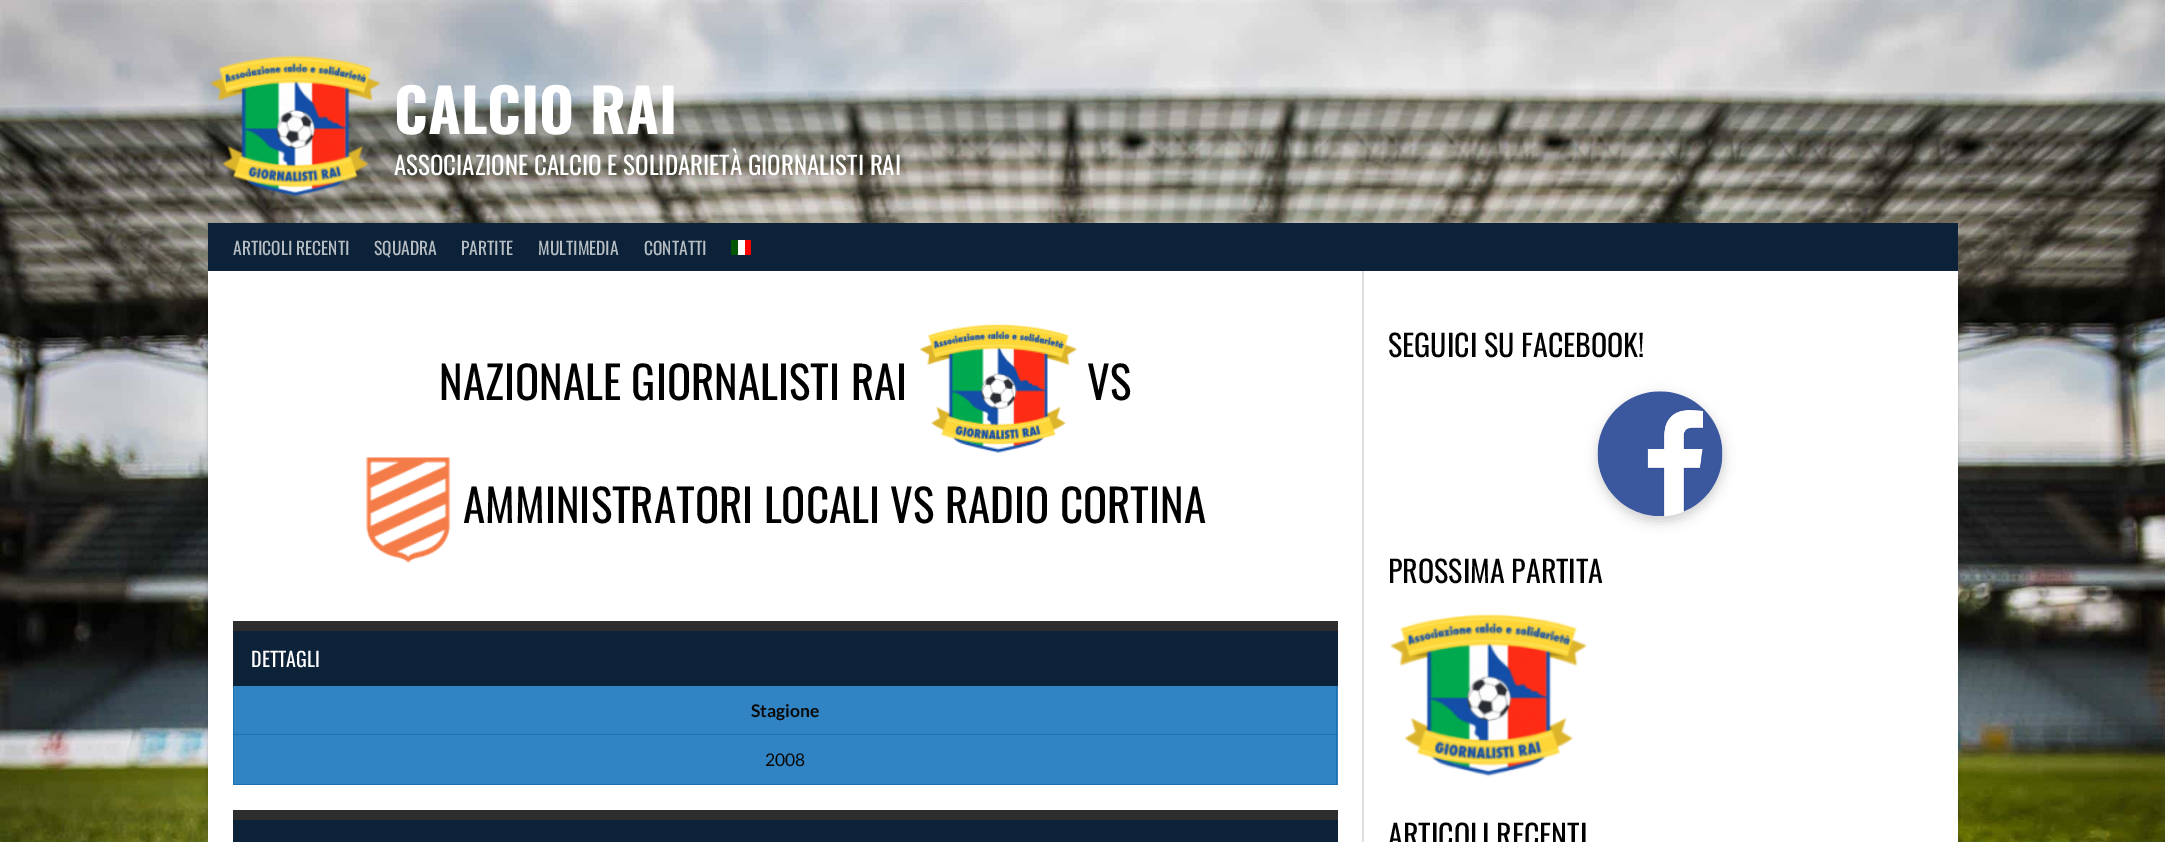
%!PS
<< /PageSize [2165 842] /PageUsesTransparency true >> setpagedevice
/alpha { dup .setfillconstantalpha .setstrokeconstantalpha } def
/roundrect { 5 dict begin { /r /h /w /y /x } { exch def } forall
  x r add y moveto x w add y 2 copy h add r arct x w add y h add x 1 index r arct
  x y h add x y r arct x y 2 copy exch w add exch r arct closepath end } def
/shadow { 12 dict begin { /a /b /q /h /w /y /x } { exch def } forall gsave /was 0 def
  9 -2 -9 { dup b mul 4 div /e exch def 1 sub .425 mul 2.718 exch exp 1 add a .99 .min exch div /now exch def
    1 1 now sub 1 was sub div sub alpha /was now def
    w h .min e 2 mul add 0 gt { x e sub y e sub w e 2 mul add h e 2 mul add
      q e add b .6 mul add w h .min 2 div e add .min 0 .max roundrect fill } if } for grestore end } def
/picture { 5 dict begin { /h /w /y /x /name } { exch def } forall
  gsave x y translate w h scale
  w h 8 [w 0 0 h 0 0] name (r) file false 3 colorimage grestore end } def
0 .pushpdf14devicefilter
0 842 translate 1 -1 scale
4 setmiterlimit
1 setgray
0 0 2165 842 rectfill
(img1.rgb) 0 0 2165 842 picture
(img2.rgb) 209 55 172 142 picture
/Oswald-Bold [60 0 0 -60 0 0] selectfont
394 134 moveto (CALCIO RAI) show
/Oswald-Regular [25 0 0 -25 0 0] selectfont
394 175 moveto (ASSOCIAZIONE CALCIO E SOLIDARIETÀ GIORNALISTI RAI) show
0 setgray
208 275 1750 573 0 2 0.2 shadow
0.047 0.133 0.22 setrgbcolor
208 223 1750 48 rectfill
/Oswald-Regular [17.5 0 0 -17.5 0 0] selectfont
0.714 0.741 0.765 setrgbcolor
233 255 moveto (ARTICOLI RECENTI) show
374 255 moveto (SQUADRA) show
461 255 moveto (PARTITE) show
538 255 moveto (MULTIMEDIA) show
644 255 moveto (CONTATTI) show
0 0.341 0 setrgbcolor
731 240 7 15 rectfill
1 setgray
738 240 7 15 rectfill
0.988 0 0 setrgbcolor
745 240 6 15 rectfill
1 setgray
208 271 1750 571 rectfill
0.878 setgray
newpath 209 271 moveto 1362 271 lineto 1362 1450 lineto 1364 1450 lineto 1364 271 lineto closepath fill
/Oswald-Regular [45 0 0 -45 0 0] selectfont
0 setgray
439 400 moveto (NAZIONALE GIORNALISTI RAI) show
(img3.rgb) 919 323 159 130 picture
1087 400 moveto (VS) show
(img4.rgb) 366 457 85 106 picture
463 523 moveto (AMMINISTRATORI LOCALI VS RADIO CORTINA) show
0.192 0.518 0.769 setrgbcolor
234 686 1104 98 rectfill
0.114 0.439 0.69 setrgbcolor
1336 685 1 100 rectfill
233 784 1105 1 rectfill
233 685 1 100 rectfill
0.047 0.133 0.22 setrgbcolor
233 631 1105 55 rectfill
0.176 setgray
233 621 1105 10 rectfill
/Oswald-Regular [20 0 0 -20 0 0] selectfont
1 setgray
251 667 moveto (DETTAGLI) show
/Lato-Bold [17.5 0 0 -17.5 0 0] selectfont
0.039 setgray
751 717 moveto (Stagione) show
0.114 0.439 0.69 setrgbcolor
233 734 1105 1 rectfill
/Lato-Regular [17.5 0 0 -17.5 0 0] selectfont
0.039 setgray
765 766 moveto (2008) show
0.047 0.133 0.22 setrgbcolor
233 820 1105 22 rectfill
0.176 setgray
233 810 1105 10 rectfill
/Oswald-Regular [30 0 0 -30 0 0] selectfont
0 setgray
1388 357 moveto (SEGUICI SU FACEBOOK!) show
1598 396 125 125 62.5 6 0.2 shadow
(img5.rgb) 1597 391 126 126 picture
1388 583 moveto (PROSSIMA PARTITA) show
(img6.rgb) 1390 613 198 164 picture
1388 847 moveto (ARTICOLI RECENTI) show
.poppdf14devicefilter showpage
